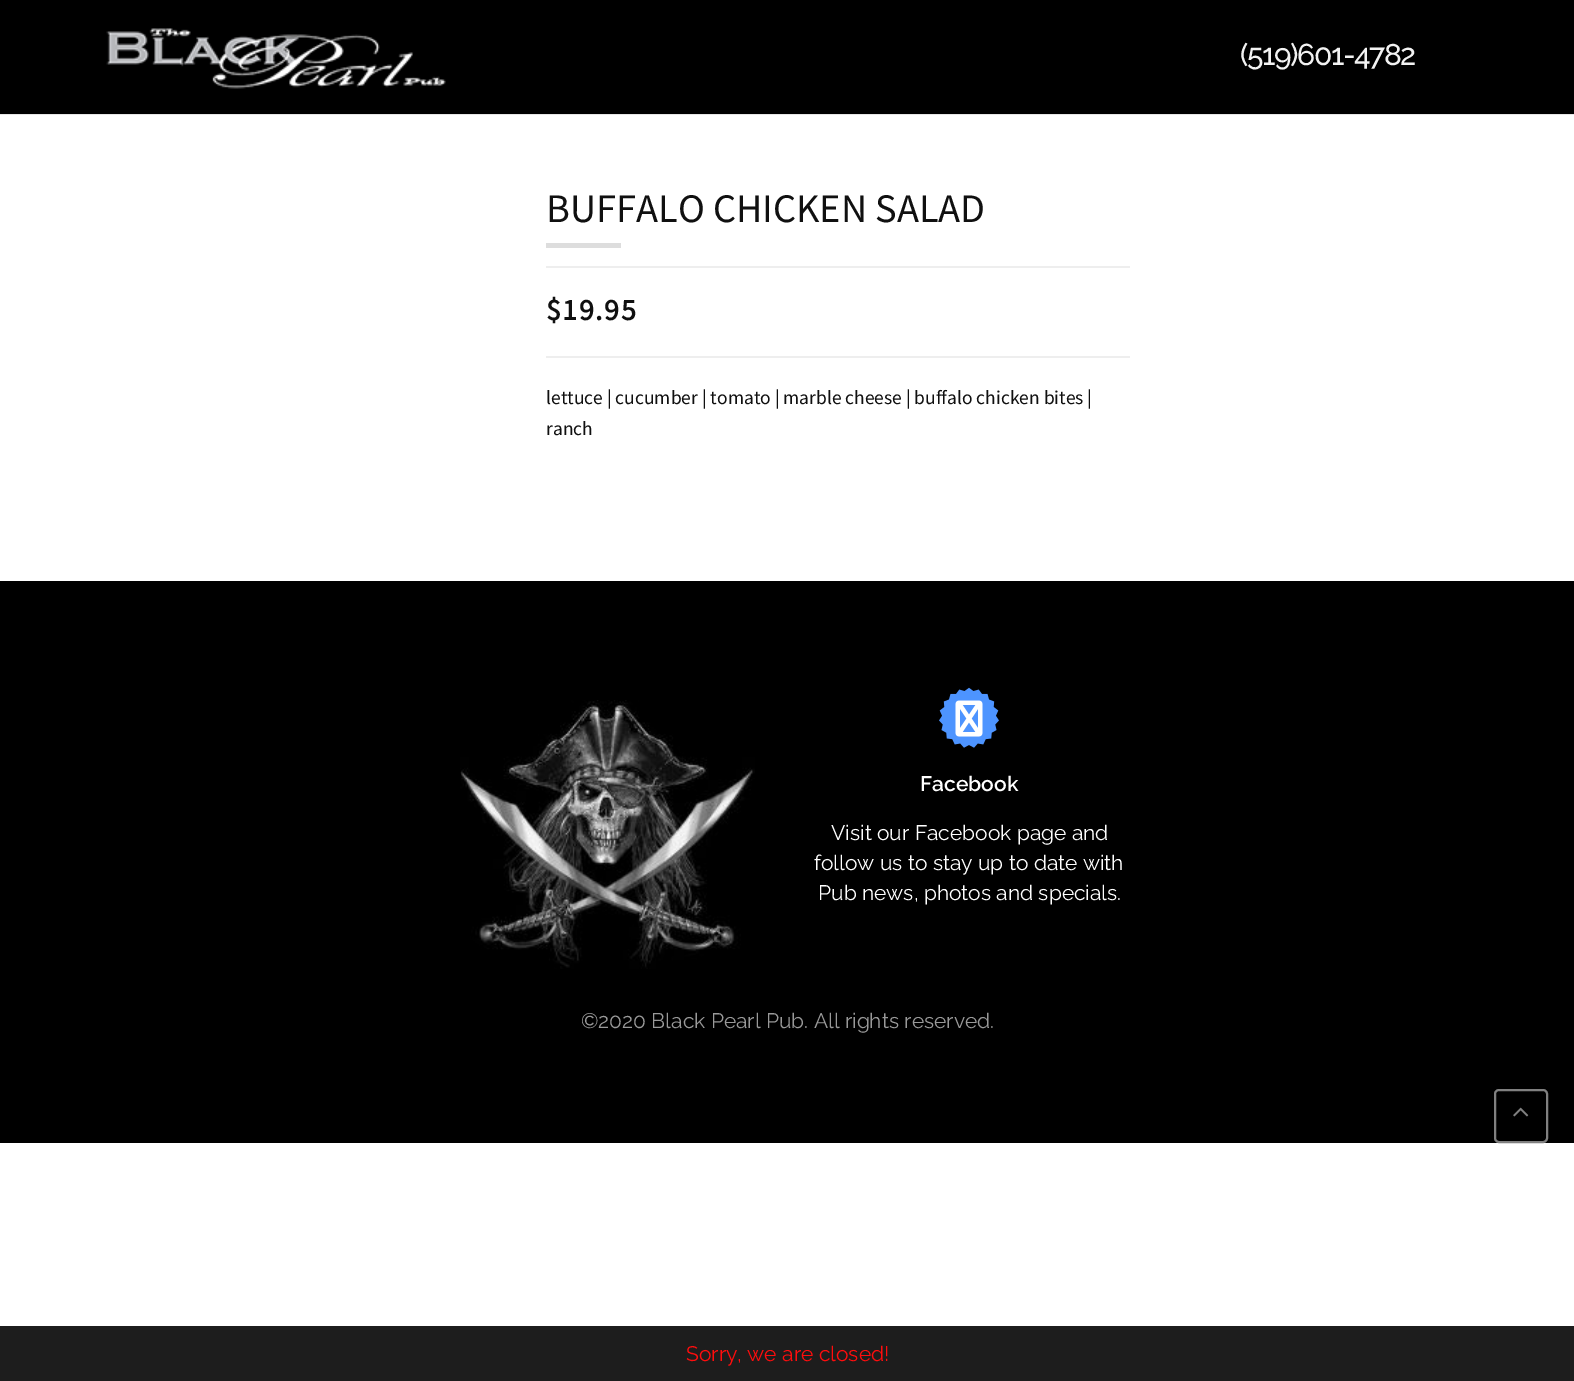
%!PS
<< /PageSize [1574 1381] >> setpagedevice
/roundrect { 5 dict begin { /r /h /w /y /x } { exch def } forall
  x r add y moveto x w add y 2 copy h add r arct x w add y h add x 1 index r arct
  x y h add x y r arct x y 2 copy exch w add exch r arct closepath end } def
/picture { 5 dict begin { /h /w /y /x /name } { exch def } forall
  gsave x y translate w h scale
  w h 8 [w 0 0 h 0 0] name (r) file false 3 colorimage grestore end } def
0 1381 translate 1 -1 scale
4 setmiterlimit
1 setgray
0 0 1574 1381 rectfill
0.902 setgray
0 114 1574 1 rectfill
0 setgray
0 0 1574 114 rectfill
(img1.rgb) 106 28 340 61 picture
/Raleway-Medium [30 0 0 -30 0 0] selectfont
0.949 setgray
1240 65 moveto -1.5 0 (\(519\)601-4782) ashow
/SourceSansPro-Regular [40.5 0 0 -40.5 0 0] selectfont
0.063 setgray
546 222 moveto (BUFFALO CHICKEN SALAD) show
0.867 setgray
546 243 75 5 rectfill
0.933 setgray
546 266 584 2 rectfill
546 356 584 2 rectfill
/SourceSansPro-Bold [30 0 0 -30 0 0] selectfont
0.063 setgray
546 320 moveto 1.5 0 ($19.95) ashow
/SourceSansPro-Regular [19.5 0 0 -19.5 0 0] selectfont
546 404 moveto (lettuce | cucumber | tomato | marble cheese | buffalo chicken bites |) show
546 435 moveto (ranch) show
0 setgray
0 581 1574 562 rectfill
(img2.rgb) 460 700 295 269 picture
(img3.rgb) 939 687 60 61 picture
(img4.rgb) 955 700 28 37 picture
/Raleway-SemiBold [21 0 0 -21 0 0] selectfont
1 setgray
920 791 moveto (Facebook) show
/Raleway-Regular [21 0 0 -21 0 0] selectfont
831 840 moveto (Visit our Facebook page and) show
814 870 moveto (follow us to stay up to date with) show
818 900 moveto (Pub news, photos and specials.) show
0.6 setgray
581 1028 moveto (©2020 Black Pearl Pub. All rights reserved.) show
0.502 setgray
2 setlinewidth
1495 1090 52 52 4 roundrect stroke
(img5.rgb) 1513 1107 16 10 picture
0.114 setgray
0 1326 1574 55 rectfill
1 0.051 0.051 setrgbcolor
686 1361 moveto (Sorry, we are closed!) show
showpage
